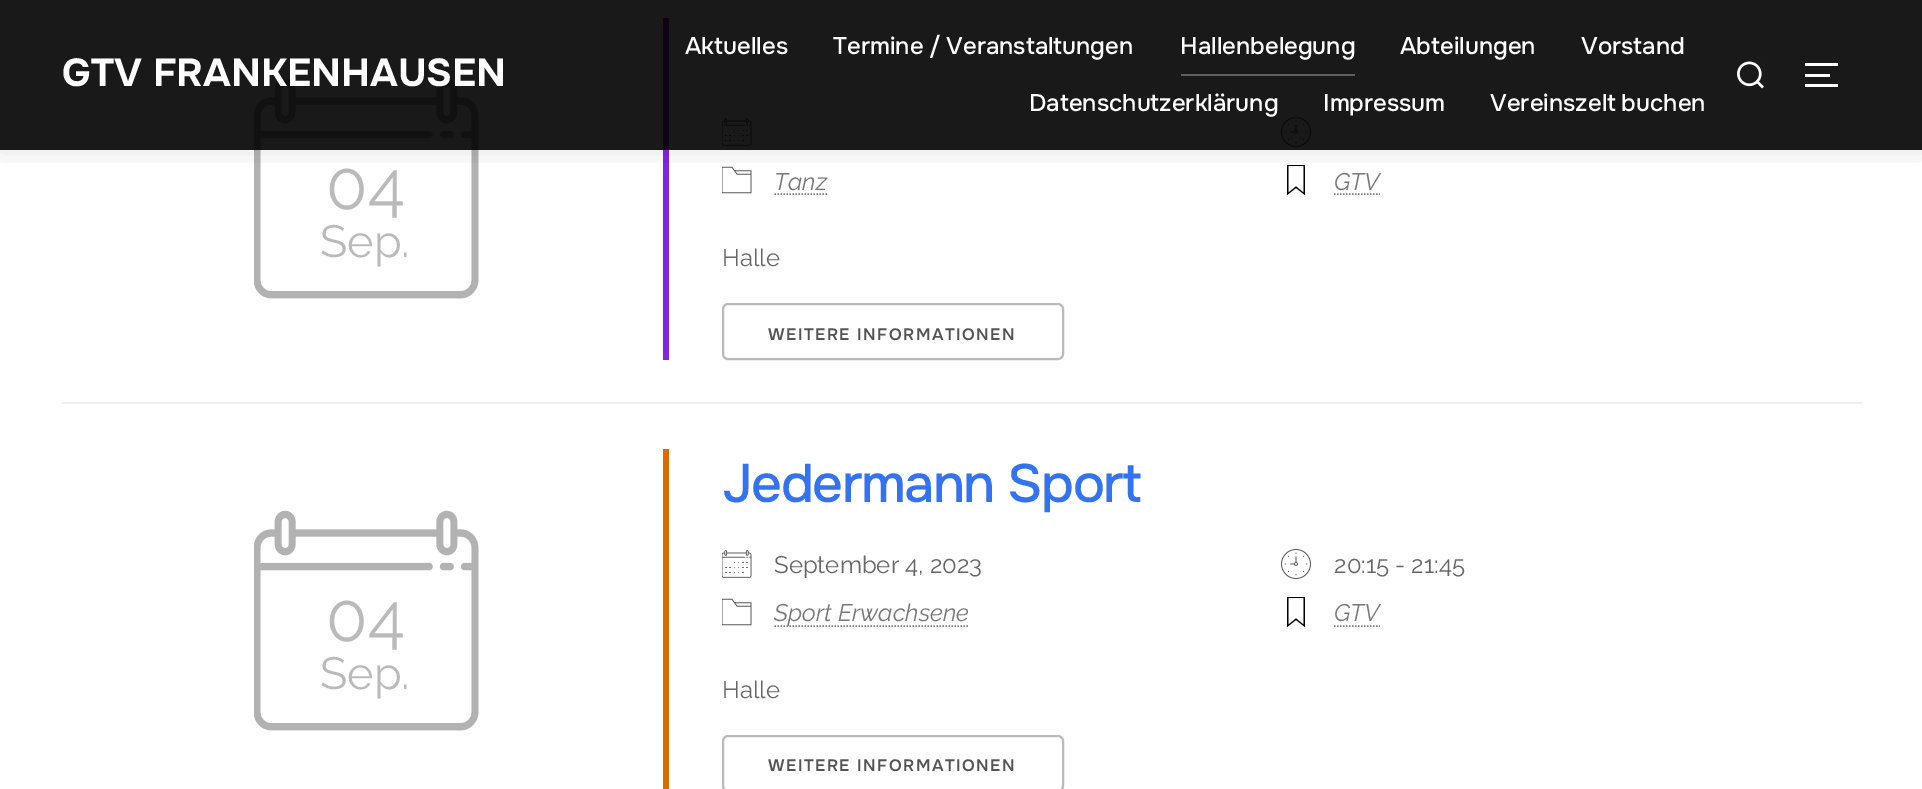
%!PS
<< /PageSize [1922 789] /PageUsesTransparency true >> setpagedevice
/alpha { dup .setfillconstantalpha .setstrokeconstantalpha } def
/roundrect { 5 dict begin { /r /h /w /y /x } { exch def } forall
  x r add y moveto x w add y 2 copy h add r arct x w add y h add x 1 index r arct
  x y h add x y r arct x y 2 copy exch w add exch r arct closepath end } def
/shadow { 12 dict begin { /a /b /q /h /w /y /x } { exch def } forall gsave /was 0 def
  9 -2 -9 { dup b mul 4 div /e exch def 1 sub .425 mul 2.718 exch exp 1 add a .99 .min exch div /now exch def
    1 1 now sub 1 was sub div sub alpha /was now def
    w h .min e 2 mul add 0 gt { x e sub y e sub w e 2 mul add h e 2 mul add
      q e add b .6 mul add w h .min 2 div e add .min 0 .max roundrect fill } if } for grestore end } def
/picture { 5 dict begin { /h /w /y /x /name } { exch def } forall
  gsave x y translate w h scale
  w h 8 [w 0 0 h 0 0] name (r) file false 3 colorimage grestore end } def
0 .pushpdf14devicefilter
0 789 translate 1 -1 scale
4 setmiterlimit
1 setgray
0 0 1922 789 rectfill
(img2.rgb) 254 78 225 221 picture
0.51 0.141 0.89 setrgbcolor
663 18 6 342 rectfill
(img3.rgb) 722 118 30 28 picture
(img4.rgb) 1281 117 30 30 picture
(img5.rgb) 722 166 30 28 picture
0.471 setgray
1.5 setlinewidth
[1.5 1.5] 0 setdash
newpath 774.5 194 moveto 827.5 194 lineto stroke
0 setgray
newpath 1287 165 moveto 1287 195 lineto 1296 188 lineto 1305 195 lineto 1305 165 lineto closepath 1303.5 192.5 moveto 1296 186.5 lineto 1288.5 192.5 lineto 1288.5 166 lineto 1303.5 166 lineto closepath fill
0.471 setgray
newpath 1334 194 moveto 1380 194 lineto stroke
gsave
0 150 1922 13 rectclip
0 setgray
-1 -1 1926 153 0 13.5 0.1 shadow
grestore
0.9 alpha
0 setgray
0 0 1922 150 rectfill
/Onest-Bold [39 0 0 -39 0 0] selectfont
1 alpha
1 setgray
62 86 moveto (GTV FRANKENHAUSEN) show
/Onest-Medium [24 0 0 -24 0 0] selectfont
685 54 moveto (Aktuelles) show
833 54 moveto -1 0 32 (Termine / Veranstaltungen) widthshow
0.369 setgray
1181 74 174 2 rectfill
1 setgray
1180 54 moveto (Hallenbelegung) show
1400 54 moveto (Abteilungen) show
1581 54 moveto (Vorstand) show
1029 111 moveto (Datenschutzerklärung) show
1323 111 moveto (Impressum) show
1490 111 moveto -1 0 32 (Vereinszelt buchen) widthshow
(img1.rgb) 1737 61 27 28 picture
1805 63 33 3 rectfill
1805 74 25 3 rectfill
1805 84 33 3 rectfill
/Raleway-Regular [68 0 0 -68 0 0] selectfont
0.729 setgray
326 209 moveto (04) show
/Raleway-Regular [45 0 0 -45 0 0] selectfont
320 257 moveto (Sep.) show
/Raleway-Italic [24 0 0 -24 0 0] selectfont
0.471 setgray
774 190 moveto (Tanz) show
1334 190 moveto (GTV) show
/Raleway-Regular [24 0 0 -24 0 0] selectfont
0.4 setgray
722 266 moveto (Halle) show
0.729 setgray
2 setlinewidth
[] 0 setdash
723 304 340 55 5 roundrect stroke
/Onest-SemiBold [16.5 0 0 -16.5 0 0] selectfont
0.329 setgray
768 340 moveto 1.5 0 (WEITERE INFORMATIONEN) ashow
0.937 setgray
62 402 1800 2 rectfill
(img2.rgb) 254 510 225 221 picture
/Raleway-Regular [68 0 0 -68 0 0] selectfont
0.729 setgray
326 641 moveto (04) show
/Raleway-Regular [45 0 0 -45 0 0] selectfont
320 689 moveto (Sep.) show
0.867 0.42 0 setrgbcolor
663 449 6 340 rectfill
/Onest-Medium [54 0 0 -54 0 0] selectfont
0.2 0.447 0.941 setrgbcolor
722 502 moveto -1.5 0 (Jedermann Sport) ashow
(img3.rgb) 722 550 30 28 picture
/Raleway-Regular [24 0 0 -24 0 0] selectfont
0.4 setgray
774 573 moveto (September 4, 2023) show
(img4.rgb) 1281 549 30 30 picture
1334 573 moveto (20:15 - 21:45) show
(img5.rgb) 722 598 30 28 picture
0.471 setgray
1.5 setlinewidth
[1.5 1.5] 0 setdash
newpath 774.5 626 moveto 969.5 626 lineto stroke
/Raleway-Italic [24 0 0 -24 0 0] selectfont
774 621 moveto (Sport Erwachsene) show
0 setgray
newpath 1287 597 moveto 1287 627 lineto 1296 620 lineto 1305 627 lineto 1305 597 lineto closepath 1303.5 624.5 moveto 1296 618.5 lineto 1288.5 624.5 lineto 1288.5 598 lineto 1303.5 598 lineto closepath fill
0.471 setgray
1334 621 moveto (GTV) show
newpath 1334 626 moveto 1380 626 lineto stroke
/Raleway-Regular [24 0 0 -24 0 0] selectfont
0.4 setgray
722 698 moveto (Halle) show
0.729 setgray
2 setlinewidth
[] 0 setdash
723 736 340 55 5 roundrect stroke
/Onest-SemiBold [16.5 0 0 -16.5 0 0] selectfont
0.329 setgray
768 771 moveto 1.5 0 (WEITERE INFORMATIONEN) ashow
.poppdf14devicefilter showpage
